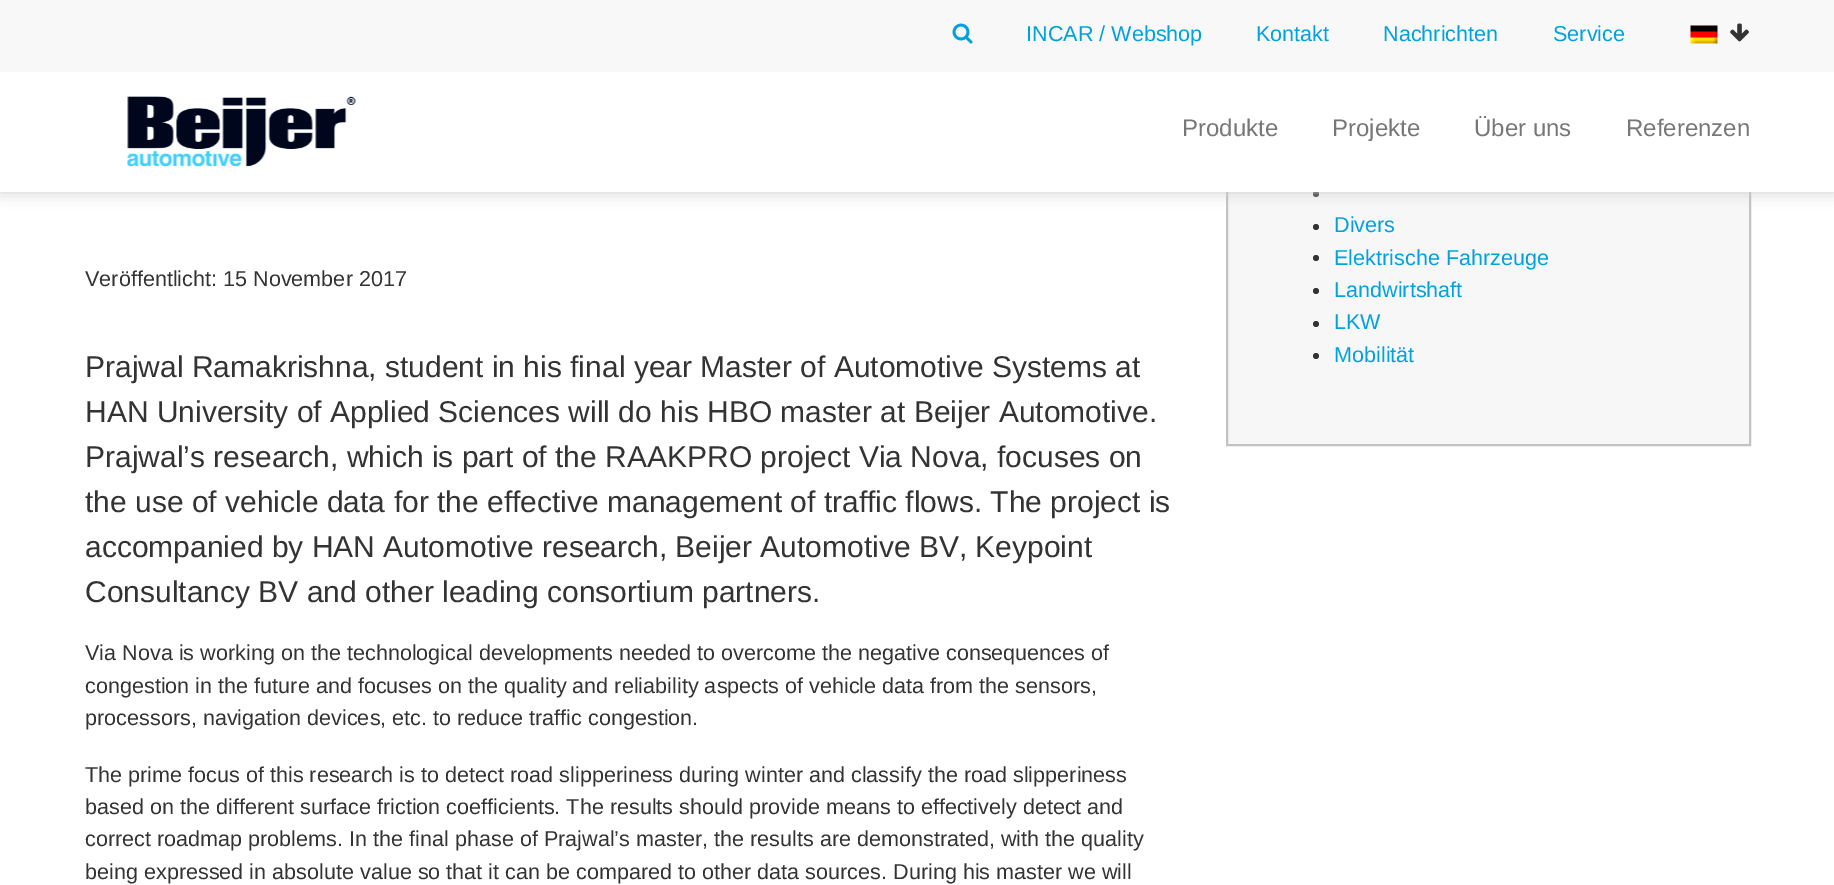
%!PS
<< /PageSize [1834 885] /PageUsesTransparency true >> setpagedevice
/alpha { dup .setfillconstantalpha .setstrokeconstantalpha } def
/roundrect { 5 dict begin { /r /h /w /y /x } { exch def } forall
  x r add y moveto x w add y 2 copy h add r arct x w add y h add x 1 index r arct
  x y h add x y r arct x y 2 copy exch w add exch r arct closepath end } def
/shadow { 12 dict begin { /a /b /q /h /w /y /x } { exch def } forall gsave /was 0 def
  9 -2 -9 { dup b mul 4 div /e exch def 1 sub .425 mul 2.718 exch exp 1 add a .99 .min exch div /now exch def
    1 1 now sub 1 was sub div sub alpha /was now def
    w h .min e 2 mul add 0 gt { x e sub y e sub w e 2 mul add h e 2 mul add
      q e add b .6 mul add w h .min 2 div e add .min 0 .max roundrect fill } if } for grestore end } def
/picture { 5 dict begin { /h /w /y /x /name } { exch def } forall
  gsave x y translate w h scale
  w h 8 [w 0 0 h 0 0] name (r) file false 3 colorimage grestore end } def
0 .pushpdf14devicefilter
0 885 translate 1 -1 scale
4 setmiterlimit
1 setgray
0 0 1834 885 rectfill
0.969 setgray
1228 192 521 252 rectfill
0.761 setgray
2 setlinewidth
1227 73 523 372 rectstroke
0.2 setgray
newpath 1316 194 3 0 360 arc closepath fill
0.808 setgray
0 72 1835 120 0 7.5 1 shadow
0.973 setgray
0 0 1834 72 rectfill
(img1.rgb) 952 23 21 21 picture
/LiberationSans-Regular [21.6 0 0 -21.6 0 0] selectfont
0.004 0.631 0.875 setrgbcolor
1026 41 moveto (INCAR / Webshop) show
1256 41 moveto (Kontakt) show
1383 41 moveto (Nachrichten) show
1553 41 moveto (Service) show
(img2.rgb) 1690 25 28 19 picture
(img3.rgb) 1730 23 19 19 picture
1 setgray
0 72 1834 120 rectfill
(img4.rgb) 127 96 229 71 picture
/LiberationSans-Regular [24 0 0 -24 0 0] selectfont
0.467 setgray
1182 136 moveto (Produkte) show
1332 136 moveto (Projekte) show
1474 136 moveto (Über uns) show
1626 136 moveto (Referenzen) show
/LiberationSans-Regular [21.6 0 0 -21.6 0 0] selectfont
0.2 setgray
85 286 moveto (Veröffentlicht: 15 November 2017) show
/LiberationSans-Regular [30 0 0 -30 0 0] selectfont
85 377 moveto (Prajwal Ramakrishna, student in his final year Master of Automotive Systems at) show
85 422 moveto (HAN University of Applied Sciences will do his HBO master at Beijer Automotive.) show
85 467 moveto (Prajwal’s research, which is part of the RAAKPRO project Via Nova, focuses on) show
85 512 moveto (the use of vehicle data for the effective management of traffic flows. The project is) show
85 557 moveto (accompanied by HAN Automotive research, Beijer Automotive BV, Keypoint) show
85 602 moveto (Consultancy BV and other leading consortium partners.) show
/LiberationSans-Regular [21.6 0 0 -21.6 0 0] selectfont
85 660 moveto (Via Nova is working on the technological developments needed to overcome the negative consequences of) show
85 693 moveto (congestion in the future and focuses on the quality and reliability aspects of vehicle data from the sensors,) show
85 725 moveto (processors, navigation devices, etc. to reduce traffic congestion.) show
85 782 moveto (The prime focus of this research is to detect road slipperiness during winter and classify the road slipperiness) show
85 814 moveto (based on the different surface friction coefficients. The results should provide means to effectively detect and) show
85 846 moveto (correct roadmap problems. In the final phase of Prajwal’s master, the results are demonstrated, with the quality) show
85 879 moveto (being expressed in absolute value so that it can be compared to other data sources. During his master we will) show
newpath 1316 227 3 0 360 arc closepath fill
0.004 0.631 0.875 setrgbcolor
1334 232 moveto (Divers) show
0.2 setgray
newpath 1316 258 3 0 360 arc closepath fill
0.004 0.631 0.875 setrgbcolor
1334 265 moveto (Elektrische Fahrzeuge) show
0.2 setgray
newpath 1316 291 3 0 360 arc closepath fill
0.004 0.631 0.875 setrgbcolor
1334 297 moveto (Landwirtshaft) show
0.2 setgray
newpath 1316 324 3 0 360 arc closepath fill
0.004 0.631 0.875 setrgbcolor
1334 329 moveto (LKW) show
0.2 setgray
newpath 1316 356 3 0 360 arc closepath fill
0.004 0.631 0.875 setrgbcolor
1334 362 moveto (Mobilität) show
.poppdf14devicefilter showpage
